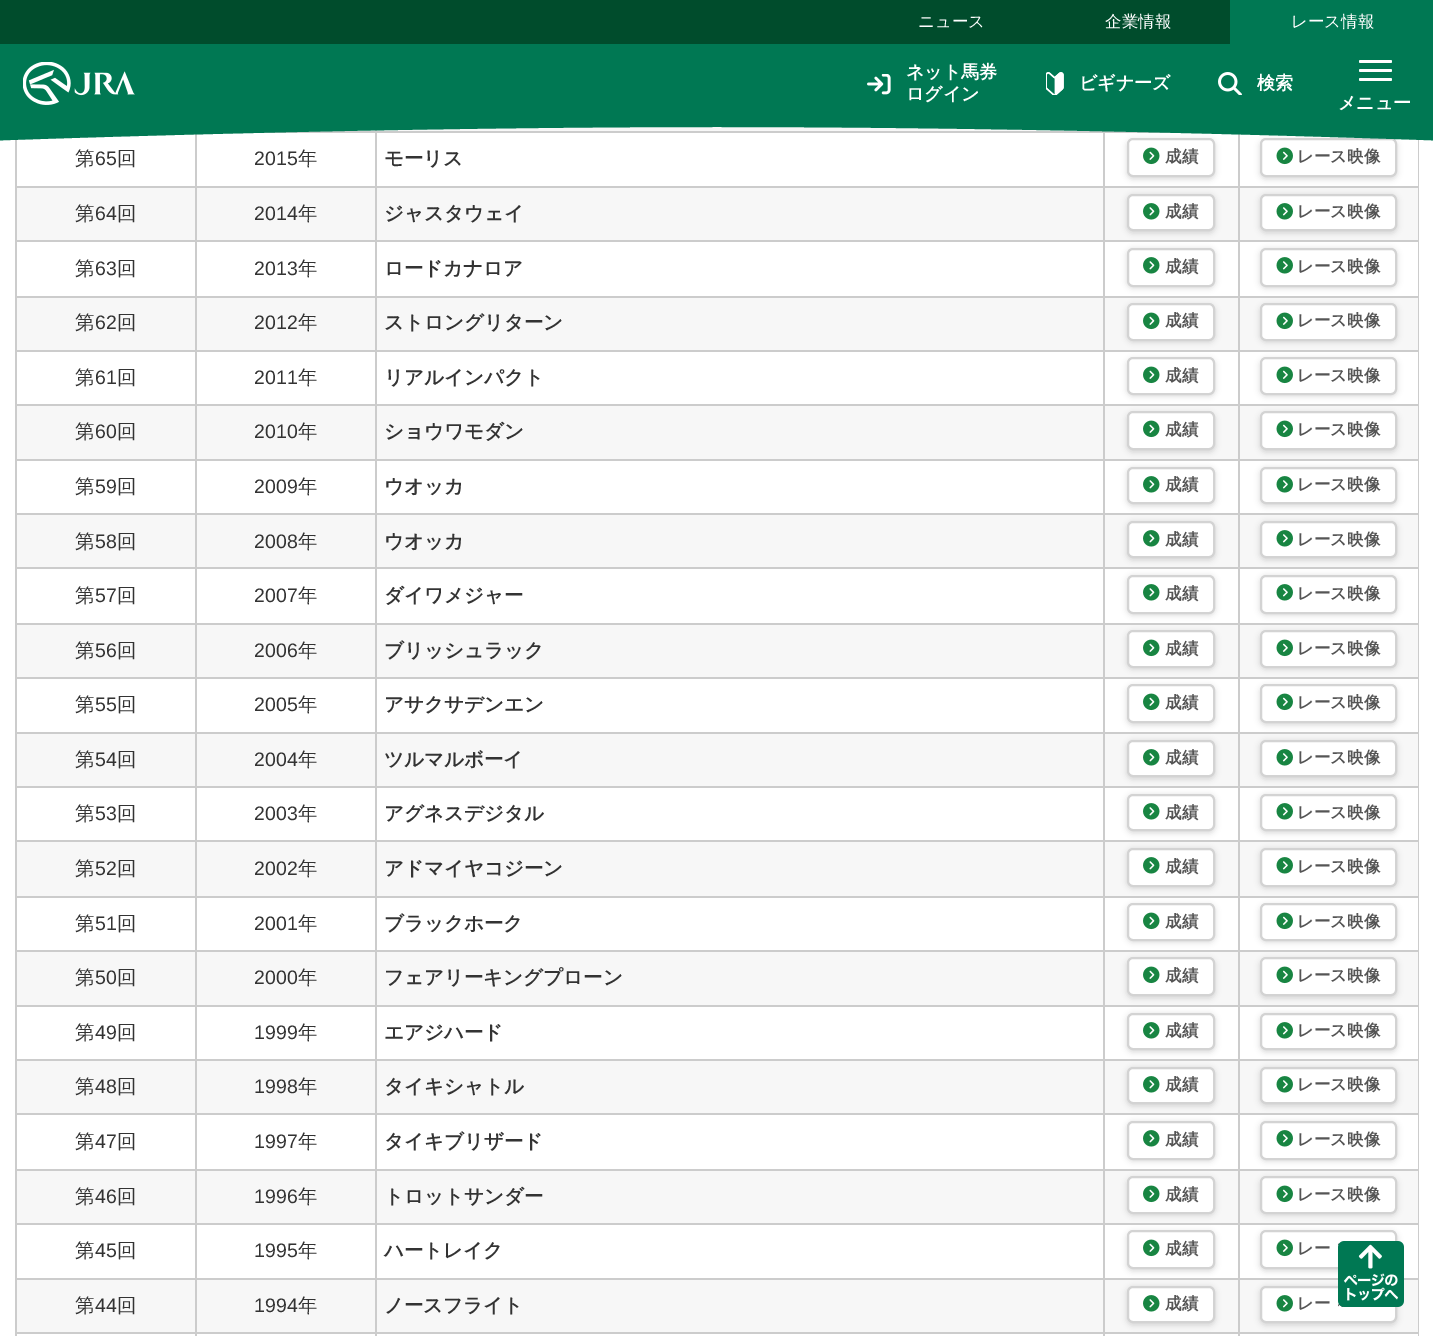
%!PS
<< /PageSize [1433 1336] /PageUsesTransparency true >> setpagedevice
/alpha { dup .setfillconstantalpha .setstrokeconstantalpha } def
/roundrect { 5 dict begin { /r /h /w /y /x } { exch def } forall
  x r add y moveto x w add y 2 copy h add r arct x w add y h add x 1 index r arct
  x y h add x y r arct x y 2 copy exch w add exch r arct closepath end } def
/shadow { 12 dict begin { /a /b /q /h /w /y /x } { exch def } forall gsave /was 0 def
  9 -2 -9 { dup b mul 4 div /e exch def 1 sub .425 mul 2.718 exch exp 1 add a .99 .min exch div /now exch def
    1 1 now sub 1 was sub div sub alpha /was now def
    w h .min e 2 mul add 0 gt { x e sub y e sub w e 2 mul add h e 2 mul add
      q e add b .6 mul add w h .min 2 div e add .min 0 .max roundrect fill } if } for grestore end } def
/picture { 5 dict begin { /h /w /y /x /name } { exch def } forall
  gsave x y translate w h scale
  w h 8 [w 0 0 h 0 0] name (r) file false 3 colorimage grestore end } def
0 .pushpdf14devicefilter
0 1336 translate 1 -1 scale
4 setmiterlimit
1 setgray
0 0 1433 1336 rectfill
0 0.471 0.325 setrgbcolor
0 44 1433 80 rectfill
0 0.298 0.173 setrgbcolor
0 0 1230 44 rectfill
/WenQuanYiZenHei-Medium [16.5 0 0 -16.5 0 0] selectfont
1 setgray
918 27 moveto (ニュース) show
1105 27 moveto (企業情報) show
0 0.471 0.325 setrgbcolor
1230 0 203 44 rectfill
1 setgray
1291 27 moveto (レース情報) show
(img1.rgb) 23 62 112 43 picture
/WenQuanYiZenHei-Bold [18 0 0 -18 0 0] selectfont
906 78 moveto (ネット馬券) show
(img2.rgb) 867 74 24 21 picture
906 100 moveto (ログイン) show
(img3.rgb) 1046 72 18 23 picture
1079 89 moveto (ビギナーズ) show
(img4.rgb) 1218 72 24 23 picture
1257 89 moveto (検索) show
1359 60 33 3 1.5 roundrect fill
1359 69 33 3 1.5 roundrect fill
1359 78 33 3 1.5 roundrect fill
1338 109 moveto (メニュー) show
0.969 setgray
347 130 28 1 rectfill
377 127 711 4 rectfill
0.8 setgray
1103 131 76 2 rectfill
1238 186 181 2 rectfill
1238 240 181 2 rectfill
1238 296 181 2 rectfill
1238 350 181 2 rectfill
1238 404 181 2 rectfill
1238 459 181 2 rectfill
1238 513 181 2 rectfill
1238 567 181 2 rectfill
1238 623 181 2 rectfill
1238 677 181 2 rectfill
1238 732 181 2 rectfill
1238 786 181 2 rectfill
1238 840 181 2 rectfill
1238 896 181 2 rectfill
1238 950 181 2 rectfill
1238 1005 181 2 rectfill
1238 1059 181 2 rectfill
1238 1113 181 2 rectfill
1238 1169 181 2 rectfill
1238 1223 181 2 rectfill
1238 1278 181 2 rectfill
1238 1332 181 2 rectfill
1238 1332 2 4 rectfill
1103 1332 136 2 rectfill
1238 1278 2 56 rectfill
1103 1278 136 2 rectfill
1238 1223 2 57 rectfill
1103 1223 136 2 rectfill
1238 1169 2 55 rectfill
1103 1169 136 2 rectfill
1238 1113 2 57 rectfill
1103 1113 136 2 rectfill
1238 1059 2 56 rectfill
1103 1059 136 2 rectfill
1238 1005 2 56 rectfill
1103 1005 136 2 rectfill
1238 950 2 57 rectfill
1103 950 136 2 rectfill
1238 896 2 55 rectfill
1103 896 136 2 rectfill
1238 840 2 57 rectfill
1103 840 136 2 rectfill
1238 786 2 56 rectfill
1103 786 136 2 rectfill
1238 732 2 56 rectfill
1103 732 136 2 rectfill
1238 677 2 57 rectfill
1103 677 136 2 rectfill
1238 623 2 55 rectfill
1103 623 136 2 rectfill
1238 567 2 57 rectfill
1103 567 136 2 rectfill
1238 513 2 56 rectfill
1103 513 136 2 rectfill
1238 459 2 56 rectfill
1103 459 136 2 rectfill
1238 404 2 57 rectfill
1103 404 136 2 rectfill
1238 350 2 55 rectfill
1103 350 136 2 rectfill
1238 296 2 55 rectfill
1103 296 136 2 rectfill
1238 240 2 57 rectfill
1103 240 136 2 rectfill
1238 186 2 56 rectfill
1103 186 136 2 rectfill
1103 1332 2 4 rectfill
375 1332 729 2 rectfill
1103 1278 2 56 rectfill
375 1278 729 2 rectfill
1103 1223 2 57 rectfill
375 1223 729 2 rectfill
1103 1169 2 55 rectfill
375 1169 729 2 rectfill
1103 1113 2 57 rectfill
375 1113 729 2 rectfill
1103 1059 2 56 rectfill
375 1059 729 2 rectfill
1103 1005 2 56 rectfill
375 1005 729 2 rectfill
1103 950 2 57 rectfill
375 950 729 2 rectfill
1103 896 2 55 rectfill
375 896 729 2 rectfill
1103 840 2 57 rectfill
375 840 729 2 rectfill
1103 786 2 56 rectfill
375 786 729 2 rectfill
1103 732 2 56 rectfill
375 732 729 2 rectfill
1103 677 2 57 rectfill
375 677 729 2 rectfill
1103 623 2 55 rectfill
375 623 729 2 rectfill
1103 567 2 57 rectfill
375 567 729 2 rectfill
1103 513 2 56 rectfill
375 513 729 2 rectfill
1103 459 2 56 rectfill
375 459 729 2 rectfill
1103 404 2 57 rectfill
375 404 729 2 rectfill
1103 350 2 55 rectfill
375 350 729 2 rectfill
1103 296 2 55 rectfill
375 296 729 2 rectfill
1103 240 2 57 rectfill
375 240 729 2 rectfill
1103 186 2 56 rectfill
375 186 729 2 rectfill
1103 131 2 57 rectfill
375 131 729 2 rectfill
375 1332 2 4 rectfill
195 1332 182 2 rectfill
375 1278 2 56 rectfill
195 1278 182 2 rectfill
375 1223 2 57 rectfill
195 1223 182 2 rectfill
375 1169 2 55 rectfill
195 1169 182 2 rectfill
375 1113 2 57 rectfill
195 1113 182 2 rectfill
375 1059 2 56 rectfill
195 1059 182 2 rectfill
375 1005 2 56 rectfill
195 1005 182 2 rectfill
375 950 2 57 rectfill
195 950 182 2 rectfill
375 896 2 55 rectfill
195 896 182 2 rectfill
375 840 2 57 rectfill
195 840 182 2 rectfill
375 786 2 56 rectfill
195 786 182 2 rectfill
375 732 2 56 rectfill
195 732 182 2 rectfill
375 677 2 57 rectfill
195 677 182 2 rectfill
375 623 2 55 rectfill
195 623 182 2 rectfill
375 567 2 57 rectfill
195 567 182 2 rectfill
375 513 2 56 rectfill
195 513 182 2 rectfill
375 459 2 56 rectfill
195 459 182 2 rectfill
375 404 2 57 rectfill
195 404 182 2 rectfill
375 350 2 55 rectfill
195 350 182 2 rectfill
375 296 2 55 rectfill
195 296 182 2 rectfill
375 240 2 57 rectfill
195 240 182 2 rectfill
375 186 2 56 rectfill
195 186 182 2 rectfill
375 130 2 58 rectfill
255 131 122 2 rectfill
195 1332 2 4 rectfill
15 1332 182 2 rectfill
195 1278 2 56 rectfill
15 1278 182 2 rectfill
195 1223 2 57 rectfill
15 1223 182 2 rectfill
195 1169 2 55 rectfill
15 1169 182 2 rectfill
195 1113 2 57 rectfill
15 1113 182 2 rectfill
195 1059 2 56 rectfill
15 1059 182 2 rectfill
195 1005 2 56 rectfill
15 1005 182 2 rectfill
195 950 2 57 rectfill
15 950 182 2 rectfill
195 896 2 55 rectfill
15 896 182 2 rectfill
195 840 2 57 rectfill
15 840 182 2 rectfill
195 786 2 56 rectfill
15 786 182 2 rectfill
195 732 2 56 rectfill
15 732 182 2 rectfill
195 677 2 57 rectfill
15 677 182 2 rectfill
195 623 2 55 rectfill
15 623 182 2 rectfill
195 567 2 57 rectfill
15 567 182 2 rectfill
195 513 2 56 rectfill
15 513 182 2 rectfill
195 459 2 56 rectfill
15 459 182 2 rectfill
195 404 2 57 rectfill
15 404 182 2 rectfill
195 350 2 55 rectfill
15 350 182 2 rectfill
195 296 2 55 rectfill
15 296 182 2 rectfill
195 240 2 57 rectfill
15 240 182 2 rectfill
195 186 2 56 rectfill
15 186 182 2 rectfill
195 131 2 57 rectfill
0.969 setgray
1105 188 133 52 rectfill
0 setgray
1127 140 88 39 6 3 0.15 shadow
1 setgray
1128 139 86 37 5 roundrect gsave fill grestore
0.827 setgray
2 setlinewidth
stroke
0.8 setgray
1238 131 2 57 rectfill
0.969 setgray
1240 188 178 52 rectfill
0 setgray
1260 140 137 39 6 3 0.15 shadow
1 setgray
1261 139 135 37 5 roundrect gsave fill grestore
0.827 setgray
stroke
0.8 setgray
15 1332 2 4 rectfill
15 1278 2 56 rectfill
15 1223 2 57 rectfill
15 1169 2 55 rectfill
15 1113 2 57 rectfill
15 1059 2 56 rectfill
15 1005 2 56 rectfill
15 950 2 57 rectfill
15 896 2 55 rectfill
15 840 2 57 rectfill
15 786 2 56 rectfill
15 732 2 56 rectfill
15 677 2 57 rectfill
15 623 2 55 rectfill
15 567 2 57 rectfill
15 513 2 56 rectfill
15 459 2 56 rectfill
15 404 2 57 rectfill
15 350 2 55 rectfill
15 296 2 55 rectfill
15 240 2 57 rectfill
15 131 2 111 rectfill
1418 1332 1 4 rectfill
1418 1278 1 56 rectfill
1418 1223 1 57 rectfill
1418 1169 1 55 rectfill
1418 1113 1 57 rectfill
1418 1059 1 56 rectfill
1418 1005 1 56 rectfill
1418 950 1 57 rectfill
1418 896 1 55 rectfill
1418 840 1 57 rectfill
1418 786 1 56 rectfill
1418 732 1 56 rectfill
1418 677 1 57 rectfill
1418 623 1 55 rectfill
1418 567 1 57 rectfill
1418 513 1 56 rectfill
1418 459 1 56 rectfill
1418 404 1 57 rectfill
1418 350 1 55 rectfill
1418 296 1 55 rectfill
1418 240 1 57 rectfill
1418 131 1 111 rectfill
0 0.471 0.325 setrgbcolor
newpath -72 124 moveto 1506 124 lineto 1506 143 lineto 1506 143 1112 127 717 127 curveto 323 127 -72 143 -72 143 curveto closepath fill
/WenQuanYiZenHei-Medium [19.5 0 0 -19.5 0 0] selectfont
0.2 setgray
75 165 moveto (第) show
/LiberationSans-Regular [19.5 0 0 -19.5 0 0] selectfont
95 165 moveto (65) show
/WenQuanYiZenHei-Medium [19.5 0 0 -19.5 0 0] selectfont
117 165 moveto (回) show
/LiberationSans-Regular [19.5 0 0 -19.5 0 0] selectfont
254 165 moveto (2015) show
/WenQuanYiZenHei-Medium [19.5 0 0 -19.5 0 0] selectfont
298 165 moveto (年) show
/WenQuanYiZenHei-Bold [19.5 0 0 -19.5 0 0] selectfont
384 165 moveto (モーリス) show
(img5.rgb) 1143 147 17 18 picture
/WenQuanYiZenHei-Bold [16.5 0 0 -16.5 0 0] selectfont
0.333 setgray
1165 162 moveto (成績) show
(img6.rgb) 1276 147 17 18 picture
1297 162 moveto (レース映像) show
0.969 setgray
17 188 178 52 rectfill
/WenQuanYiZenHei-Medium [19.5 0 0 -19.5 0 0] selectfont
0.2 setgray
75 220 moveto (第) show
/LiberationSans-Regular [19.5 0 0 -19.5 0 0] selectfont
95 220 moveto (64) show
/WenQuanYiZenHei-Medium [19.5 0 0 -19.5 0 0] selectfont
117 220 moveto (回) show
0.969 setgray
197 188 178 52 rectfill
/LiberationSans-Regular [19.5 0 0 -19.5 0 0] selectfont
0.2 setgray
254 220 moveto (2014) show
/WenQuanYiZenHei-Medium [19.5 0 0 -19.5 0 0] selectfont
298 220 moveto (年) show
0.969 setgray
377 188 726 52 rectfill
/WenQuanYiZenHei-Bold [19.5 0 0 -19.5 0 0] selectfont
0.2 setgray
384 220 moveto (ジャスタウェイ) show
0 setgray
1127 195 88 38 6 3 0.15 shadow
1 setgray
1128 195 86 35 5 roundrect gsave fill grestore
0.827 setgray
stroke
(img7.rgb) 1143 203 17 17 picture
/WenQuanYiZenHei-Bold [16.5 0 0 -16.5 0 0] selectfont
0.333 setgray
1165 217 moveto (成績) show
0 setgray
1260 195 137 38 6 3 0.15 shadow
1 setgray
1261 195 135 35 5 roundrect gsave fill grestore
0.827 setgray
stroke
(img8.rgb) 1276 203 17 17 picture
0.333 setgray
1297 217 moveto (レース映像) show
/WenQuanYiZenHei-Medium [19.5 0 0 -19.5 0 0] selectfont
0.2 setgray
75 275 moveto (第) show
/LiberationSans-Regular [19.5 0 0 -19.5 0 0] selectfont
95 275 moveto (63) show
/WenQuanYiZenHei-Medium [19.5 0 0 -19.5 0 0] selectfont
117 275 moveto (回) show
/LiberationSans-Regular [19.5 0 0 -19.5 0 0] selectfont
254 275 moveto (2013) show
/WenQuanYiZenHei-Medium [19.5 0 0 -19.5 0 0] selectfont
298 275 moveto (年) show
/WenQuanYiZenHei-Bold [19.5 0 0 -19.5 0 0] selectfont
384 275 moveto (ロードカナロア) show
0 setgray
1127 249 88 39 6 3 0.15 shadow
1 setgray
1128 249 86 37 5 roundrect gsave fill grestore
0.827 setgray
stroke
(img7.rgb) 1143 257 17 17 picture
/WenQuanYiZenHei-Bold [16.5 0 0 -16.5 0 0] selectfont
0.333 setgray
1165 272 moveto (成績) show
0 setgray
1260 249 137 39 6 3 0.15 shadow
1 setgray
1261 249 135 37 5 roundrect gsave fill grestore
0.827 setgray
stroke
(img8.rgb) 1276 257 17 17 picture
0.333 setgray
1297 272 moveto (レース映像) show
0.969 setgray
17 298 178 52 rectfill
/WenQuanYiZenHei-Medium [19.5 0 0 -19.5 0 0] selectfont
0.2 setgray
75 329 moveto (第) show
/LiberationSans-Regular [19.5 0 0 -19.5 0 0] selectfont
95 329 moveto (62) show
/WenQuanYiZenHei-Medium [19.5 0 0 -19.5 0 0] selectfont
117 329 moveto (回) show
0.969 setgray
197 298 178 52 rectfill
/LiberationSans-Regular [19.5 0 0 -19.5 0 0] selectfont
0.2 setgray
254 329 moveto (2012) show
/WenQuanYiZenHei-Medium [19.5 0 0 -19.5 0 0] selectfont
298 329 moveto (年) show
0.969 setgray
377 298 726 52 rectfill
/WenQuanYiZenHei-Bold [19.5 0 0 -19.5 0 0] selectfont
0.2 setgray
384 329 moveto (ストロングリターン) show
0.969 setgray
1105 298 133 52 rectfill
0 setgray
1127 305 88 37 6 3 0.15 shadow
1 setgray
1128 304 86 36 5 roundrect gsave fill grestore
0.827 setgray
stroke
(img5.rgb) 1143 312 17 18 picture
/WenQuanYiZenHei-Bold [16.5 0 0 -16.5 0 0] selectfont
0.333 setgray
1165 326 moveto (成績) show
0.969 setgray
1240 298 178 52 rectfill
0 setgray
1260 305 137 37 6 3 0.15 shadow
1 setgray
1261 304 135 36 5 roundrect gsave fill grestore
0.827 setgray
stroke
(img6.rgb) 1276 312 17 18 picture
0.333 setgray
1297 326 moveto (レース映像) show
/WenQuanYiZenHei-Medium [19.5 0 0 -19.5 0 0] selectfont
0.2 setgray
75 384 moveto (第) show
/LiberationSans-Regular [19.5 0 0 -19.5 0 0] selectfont
95 384 moveto (61) show
/WenQuanYiZenHei-Medium [19.5 0 0 -19.5 0 0] selectfont
117 384 moveto (回) show
/LiberationSans-Regular [19.5 0 0 -19.5 0 0] selectfont
254 384 moveto (2011) show
/WenQuanYiZenHei-Medium [19.5 0 0 -19.5 0 0] selectfont
298 384 moveto (年) show
/WenQuanYiZenHei-Bold [19.5 0 0 -19.5 0 0] selectfont
384 384 moveto (リアルインパクト) show
0 setgray
1127 359 88 37 6 3 0.15 shadow
1 setgray
1128 358 86 36 5 roundrect gsave fill grestore
0.827 setgray
stroke
(img5.rgb) 1143 366 17 18 picture
/WenQuanYiZenHei-Bold [16.5 0 0 -16.5 0 0] selectfont
0.333 setgray
1165 381 moveto (成績) show
0 setgray
1260 359 137 37 6 3 0.15 shadow
1 setgray
1261 358 135 36 5 roundrect gsave fill grestore
0.827 setgray
stroke
(img6.rgb) 1276 366 17 18 picture
0.333 setgray
1297 381 moveto (レース映像) show
0.969 setgray
17 406 178 53 rectfill
/WenQuanYiZenHei-Medium [19.5 0 0 -19.5 0 0] selectfont
0.2 setgray
75 438 moveto (第) show
/LiberationSans-Regular [19.5 0 0 -19.5 0 0] selectfont
95 438 moveto (60) show
/WenQuanYiZenHei-Medium [19.5 0 0 -19.5 0 0] selectfont
117 438 moveto (回) show
0.969 setgray
197 406 178 53 rectfill
/LiberationSans-Regular [19.5 0 0 -19.5 0 0] selectfont
0.2 setgray
254 438 moveto (2010) show
/WenQuanYiZenHei-Medium [19.5 0 0 -19.5 0 0] selectfont
298 438 moveto (年) show
0.969 setgray
377 406 726 53 rectfill
/WenQuanYiZenHei-Bold [19.5 0 0 -19.5 0 0] selectfont
0.2 setgray
384 438 moveto (ショウワモダン) show
0.969 setgray
1105 406 133 53 rectfill
0 setgray
1127 413 88 39 6 3 0.15 shadow
1 setgray
1128 412 86 37 5 roundrect gsave fill grestore
0.827 setgray
stroke
(img5.rgb) 1143 420 17 18 picture
/WenQuanYiZenHei-Bold [16.5 0 0 -16.5 0 0] selectfont
0.333 setgray
1165 435 moveto (成績) show
0.969 setgray
1240 406 178 53 rectfill
0 setgray
1260 413 137 39 6 3 0.15 shadow
1 setgray
1261 412 135 37 5 roundrect gsave fill grestore
0.827 setgray
stroke
(img6.rgb) 1276 420 17 18 picture
0.333 setgray
1297 435 moveto (レース映像) show
/WenQuanYiZenHei-Medium [19.5 0 0 -19.5 0 0] selectfont
0.2 setgray
75 493 moveto (第) show
/LiberationSans-Regular [19.5 0 0 -19.5 0 0] selectfont
95 493 moveto (59) show
/WenQuanYiZenHei-Medium [19.5 0 0 -19.5 0 0] selectfont
117 493 moveto (回) show
/LiberationSans-Regular [19.5 0 0 -19.5 0 0] selectfont
254 493 moveto (2009) show
/WenQuanYiZenHei-Medium [19.5 0 0 -19.5 0 0] selectfont
298 493 moveto (年) show
/WenQuanYiZenHei-Bold [19.5 0 0 -19.5 0 0] selectfont
384 493 moveto (ウオッカ) show
0.969 setgray
1105 515 133 52 rectfill
0 setgray
1127 468 88 38 6 3 0.15 shadow
1 setgray
1128 468 86 35 5 roundrect gsave fill grestore
0.827 setgray
stroke
(img7.rgb) 1143 476 17 17 picture
/WenQuanYiZenHei-Bold [16.5 0 0 -16.5 0 0] selectfont
0.333 setgray
1165 490 moveto (成績) show
0.969 setgray
1240 515 178 52 rectfill
0 setgray
1260 468 137 38 6 3 0.15 shadow
1 setgray
1261 468 135 35 5 roundrect gsave fill grestore
0.827 setgray
stroke
(img8.rgb) 1276 476 17 17 picture
0.333 setgray
1297 490 moveto (レース映像) show
0.969 setgray
17 515 178 52 rectfill
/WenQuanYiZenHei-Medium [19.5 0 0 -19.5 0 0] selectfont
0.2 setgray
75 548 moveto (第) show
/LiberationSans-Regular [19.5 0 0 -19.5 0 0] selectfont
95 548 moveto (58) show
/WenQuanYiZenHei-Medium [19.5 0 0 -19.5 0 0] selectfont
117 548 moveto (回) show
0.969 setgray
197 515 178 52 rectfill
/LiberationSans-Regular [19.5 0 0 -19.5 0 0] selectfont
0.2 setgray
254 548 moveto (2008) show
/WenQuanYiZenHei-Medium [19.5 0 0 -19.5 0 0] selectfont
298 548 moveto (年) show
0.969 setgray
377 515 726 52 rectfill
/WenQuanYiZenHei-Bold [19.5 0 0 -19.5 0 0] selectfont
0.2 setgray
384 548 moveto (ウオッカ) show
0 setgray
1127 522 88 38 6 3 0.15 shadow
1 setgray
1128 522 86 35 5 roundrect gsave fill grestore
0.827 setgray
stroke
(img7.rgb) 1143 530 17 17 picture
/WenQuanYiZenHei-Bold [16.5 0 0 -16.5 0 0] selectfont
0.333 setgray
1165 545 moveto (成績) show
0 setgray
1260 522 137 38 6 3 0.15 shadow
1 setgray
1261 522 135 35 5 roundrect gsave fill grestore
0.827 setgray
stroke
(img8.rgb) 1276 530 17 17 picture
0.333 setgray
1297 545 moveto (レース映像) show
/WenQuanYiZenHei-Medium [19.5 0 0 -19.5 0 0] selectfont
0.2 setgray
75 602 moveto (第) show
/LiberationSans-Regular [19.5 0 0 -19.5 0 0] selectfont
95 602 moveto (57) show
/WenQuanYiZenHei-Medium [19.5 0 0 -19.5 0 0] selectfont
117 602 moveto (回) show
/LiberationSans-Regular [19.5 0 0 -19.5 0 0] selectfont
254 602 moveto (2007) show
/WenQuanYiZenHei-Medium [19.5 0 0 -19.5 0 0] selectfont
298 602 moveto (年) show
/WenQuanYiZenHei-Bold [19.5 0 0 -19.5 0 0] selectfont
384 602 moveto (ダイワメジャー) show
0 setgray
1127 576 88 39 6 3 0.15 shadow
1 setgray
1128 576 86 37 5 roundrect gsave fill grestore
0.827 setgray
stroke
(img7.rgb) 1143 584 17 17 picture
/WenQuanYiZenHei-Bold [16.5 0 0 -16.5 0 0] selectfont
0.333 setgray
1165 599 moveto (成績) show
0 setgray
1260 576 137 39 6 3 0.15 shadow
1 setgray
1261 576 135 37 5 roundrect gsave fill grestore
0.827 setgray
stroke
(img8.rgb) 1276 584 17 17 picture
0.333 setgray
1297 599 moveto (レース映像) show
0.969 setgray
17 625 178 52 rectfill
/WenQuanYiZenHei-Medium [19.5 0 0 -19.5 0 0] selectfont
0.2 setgray
75 657 moveto (第) show
/LiberationSans-Regular [19.5 0 0 -19.5 0 0] selectfont
95 657 moveto (56) show
/WenQuanYiZenHei-Medium [19.5 0 0 -19.5 0 0] selectfont
117 657 moveto (回) show
0.969 setgray
197 625 178 52 rectfill
/LiberationSans-Regular [19.5 0 0 -19.5 0 0] selectfont
0.2 setgray
254 657 moveto (2006) show
/WenQuanYiZenHei-Medium [19.5 0 0 -19.5 0 0] selectfont
298 657 moveto (年) show
0.969 setgray
377 625 726 52 rectfill
/WenQuanYiZenHei-Bold [19.5 0 0 -19.5 0 0] selectfont
0.2 setgray
384 657 moveto (ブリッシュラック) show
0.969 setgray
1105 625 133 52 rectfill
0 setgray
1127 632 88 37 6 3 0.15 shadow
1 setgray
1128 631 86 36 5 roundrect gsave fill grestore
0.827 setgray
stroke
(img5.rgb) 1143 639 17 18 picture
/WenQuanYiZenHei-Bold [16.5 0 0 -16.5 0 0] selectfont
0.333 setgray
1165 654 moveto (成績) show
0.969 setgray
1240 625 178 52 rectfill
0 setgray
1260 632 137 37 6 3 0.15 shadow
1 setgray
1261 631 135 36 5 roundrect gsave fill grestore
0.827 setgray
stroke
(img6.rgb) 1276 639 17 18 picture
0.333 setgray
1297 654 moveto (レース映像) show
/WenQuanYiZenHei-Medium [19.5 0 0 -19.5 0 0] selectfont
0.2 setgray
75 711 moveto (第) show
/LiberationSans-Regular [19.5 0 0 -19.5 0 0] selectfont
95 711 moveto (55) show
/WenQuanYiZenHei-Medium [19.5 0 0 -19.5 0 0] selectfont
117 711 moveto (回) show
/LiberationSans-Regular [19.5 0 0 -19.5 0 0] selectfont
254 711 moveto (2005) show
/WenQuanYiZenHei-Medium [19.5 0 0 -19.5 0 0] selectfont
298 711 moveto (年) show
/WenQuanYiZenHei-Bold [19.5 0 0 -19.5 0 0] selectfont
384 711 moveto (アサクサデンエン) show
0.969 setgray
1105 734 133 52 rectfill
0 setgray
1127 686 88 39 6 3 0.15 shadow
1 setgray
1128 685 86 37 5 roundrect gsave fill grestore
0.827 setgray
stroke
(img5.rgb) 1143 693 17 18 picture
/WenQuanYiZenHei-Bold [16.5 0 0 -16.5 0 0] selectfont
0.333 setgray
1165 708 moveto (成績) show
0.969 setgray
1240 734 178 52 rectfill
0 setgray
1260 686 137 39 6 3 0.15 shadow
1 setgray
1261 685 135 37 5 roundrect gsave fill grestore
0.827 setgray
stroke
(img6.rgb) 1276 693 17 18 picture
0.333 setgray
1297 708 moveto (レース映像) show
0.969 setgray
17 734 178 52 rectfill
/WenQuanYiZenHei-Medium [19.5 0 0 -19.5 0 0] selectfont
0.2 setgray
75 766 moveto (第) show
/LiberationSans-Regular [19.5 0 0 -19.5 0 0] selectfont
95 766 moveto (54) show
/WenQuanYiZenHei-Medium [19.5 0 0 -19.5 0 0] selectfont
117 766 moveto (回) show
0.969 setgray
197 734 178 52 rectfill
/LiberationSans-Regular [19.5 0 0 -19.5 0 0] selectfont
0.2 setgray
254 766 moveto (2004) show
/WenQuanYiZenHei-Medium [19.5 0 0 -19.5 0 0] selectfont
298 766 moveto (年) show
0.969 setgray
377 734 726 52 rectfill
/WenQuanYiZenHei-Bold [19.5 0 0 -19.5 0 0] selectfont
0.2 setgray
384 766 moveto (ツルマルボーイ) show
0 setgray
1127 741 88 38 6 3 0.15 shadow
1 setgray
1128 741 86 35 5 roundrect gsave fill grestore
0.827 setgray
stroke
(img7.rgb) 1143 749 17 17 picture
/WenQuanYiZenHei-Bold [16.5 0 0 -16.5 0 0] selectfont
0.333 setgray
1165 763 moveto (成績) show
0 setgray
1260 741 137 38 6 3 0.15 shadow
1 setgray
1261 741 135 35 5 roundrect gsave fill grestore
0.827 setgray
stroke
(img8.rgb) 1276 749 17 17 picture
0.333 setgray
1297 763 moveto (レース映像) show
/WenQuanYiZenHei-Medium [19.5 0 0 -19.5 0 0] selectfont
0.2 setgray
75 820 moveto (第) show
/LiberationSans-Regular [19.5 0 0 -19.5 0 0] selectfont
95 820 moveto (53) show
/WenQuanYiZenHei-Medium [19.5 0 0 -19.5 0 0] selectfont
117 820 moveto (回) show
/LiberationSans-Regular [19.5 0 0 -19.5 0 0] selectfont
254 820 moveto (2003) show
/WenQuanYiZenHei-Medium [19.5 0 0 -19.5 0 0] selectfont
298 820 moveto (年) show
/WenQuanYiZenHei-Bold [19.5 0 0 -19.5 0 0] selectfont
384 820 moveto (アグネスデジタル) show
0.969 setgray
1105 842 133 54 rectfill
0 setgray
1127 795 88 38 6 3 0.15 shadow
1 setgray
1128 795 86 35 5 roundrect gsave fill grestore
0.827 setgray
stroke
(img7.rgb) 1143 803 17 17 picture
/WenQuanYiZenHei-Bold [16.5 0 0 -16.5 0 0] selectfont
0.333 setgray
1165 818 moveto (成績) show
0.969 setgray
1240 842 178 54 rectfill
0 setgray
1260 795 137 38 6 3 0.15 shadow
1 setgray
1261 795 135 35 5 roundrect gsave fill grestore
0.827 setgray
stroke
(img8.rgb) 1276 803 17 17 picture
0.333 setgray
1297 818 moveto (レース映像) show
0.969 setgray
17 842 178 54 rectfill
/WenQuanYiZenHei-Medium [19.5 0 0 -19.5 0 0] selectfont
0.2 setgray
75 875 moveto (第) show
/LiberationSans-Regular [19.5 0 0 -19.5 0 0] selectfont
95 875 moveto (52) show
/WenQuanYiZenHei-Medium [19.5 0 0 -19.5 0 0] selectfont
117 875 moveto (回) show
0.969 setgray
197 842 178 54 rectfill
/LiberationSans-Regular [19.5 0 0 -19.5 0 0] selectfont
0.2 setgray
254 875 moveto (2002) show
/WenQuanYiZenHei-Medium [19.5 0 0 -19.5 0 0] selectfont
298 875 moveto (年) show
0.969 setgray
377 842 726 54 rectfill
/WenQuanYiZenHei-Bold [19.5 0 0 -19.5 0 0] selectfont
0.2 setgray
384 875 moveto (アドマイヤコジーン) show
0 setgray
1127 849 88 39 6 3 0.15 shadow
1 setgray
1128 849 86 37 5 roundrect gsave fill grestore
0.827 setgray
stroke
(img7.rgb) 1143 857 17 17 picture
/WenQuanYiZenHei-Bold [16.5 0 0 -16.5 0 0] selectfont
0.333 setgray
1165 872 moveto (成績) show
0 setgray
1260 849 137 39 6 3 0.15 shadow
1 setgray
1261 849 135 37 5 roundrect gsave fill grestore
0.827 setgray
stroke
(img8.rgb) 1276 857 17 17 picture
0.333 setgray
1297 872 moveto (レース映像) show
/WenQuanYiZenHei-Medium [19.5 0 0 -19.5 0 0] selectfont
0.2 setgray
75 930 moveto (第) show
/LiberationSans-Regular [19.5 0 0 -19.5 0 0] selectfont
95 930 moveto (51) show
/WenQuanYiZenHei-Medium [19.5 0 0 -19.5 0 0] selectfont
117 930 moveto (回) show
/LiberationSans-Regular [19.5 0 0 -19.5 0 0] selectfont
254 930 moveto (2001) show
/WenQuanYiZenHei-Medium [19.5 0 0 -19.5 0 0] selectfont
298 930 moveto (年) show
/WenQuanYiZenHei-Bold [19.5 0 0 -19.5 0 0] selectfont
384 930 moveto (ブラックホーク) show
0 setgray
1127 905 88 37 6 3 0.15 shadow
1 setgray
1128 904 86 36 5 roundrect gsave fill grestore
0.827 setgray
stroke
(img5.rgb) 1143 912 17 18 picture
/WenQuanYiZenHei-Bold [16.5 0 0 -16.5 0 0] selectfont
0.333 setgray
1165 927 moveto (成績) show
0 setgray
1260 905 137 37 6 3 0.15 shadow
1 setgray
1261 904 135 36 5 roundrect gsave fill grestore
0.827 setgray
stroke
(img6.rgb) 1276 912 17 18 picture
0.333 setgray
1297 927 moveto (レース映像) show
0.969 setgray
17 952 178 53 rectfill
/WenQuanYiZenHei-Medium [19.5 0 0 -19.5 0 0] selectfont
0.2 setgray
75 984 moveto (第) show
/LiberationSans-Regular [19.5 0 0 -19.5 0 0] selectfont
95 984 moveto (50) show
/WenQuanYiZenHei-Medium [19.5 0 0 -19.5 0 0] selectfont
117 984 moveto (回) show
0.969 setgray
197 952 178 53 rectfill
/LiberationSans-Regular [19.5 0 0 -19.5 0 0] selectfont
0.2 setgray
254 984 moveto (2000) show
/WenQuanYiZenHei-Medium [19.5 0 0 -19.5 0 0] selectfont
298 984 moveto (年) show
0.969 setgray
377 952 726 53 rectfill
/WenQuanYiZenHei-Bold [19.5 0 0 -19.5 0 0] selectfont
0.2 setgray
384 984 moveto (フェアリーキングプローン) show
0.969 setgray
1105 952 133 53 rectfill
0 setgray
1127 959 88 39 6 3 0.15 shadow
1 setgray
1128 958 86 37 5 roundrect gsave fill grestore
0.827 setgray
stroke
(img5.rgb) 1143 966 17 18 picture
/WenQuanYiZenHei-Bold [16.5 0 0 -16.5 0 0] selectfont
0.333 setgray
1165 981 moveto (成績) show
0.969 setgray
1240 952 178 53 rectfill
0 setgray
1260 959 137 39 6 3 0.15 shadow
1 setgray
1261 958 135 37 5 roundrect gsave fill grestore
0.827 setgray
stroke
(img6.rgb) 1276 966 17 18 picture
0.333 setgray
1297 981 moveto (レース映像) show
/WenQuanYiZenHei-Medium [19.5 0 0 -19.5 0 0] selectfont
0.2 setgray
75 1039 moveto (第) show
/LiberationSans-Regular [19.5 0 0 -19.5 0 0] selectfont
95 1039 moveto (49) show
/WenQuanYiZenHei-Medium [19.5 0 0 -19.5 0 0] selectfont
117 1039 moveto (回) show
/LiberationSans-Regular [19.5 0 0 -19.5 0 0] selectfont
254 1039 moveto (1999) show
/WenQuanYiZenHei-Medium [19.5 0 0 -19.5 0 0] selectfont
298 1039 moveto (年) show
/WenQuanYiZenHei-Bold [19.5 0 0 -19.5 0 0] selectfont
384 1039 moveto (エアジハード) show
0.969 setgray
1105 1061 133 52 rectfill
0 setgray
1127 1014 88 38 6 3 0.15 shadow
1 setgray
1128 1014 86 35 5 roundrect gsave fill grestore
0.827 setgray
stroke
(img7.rgb) 1143 1022 17 17 picture
/WenQuanYiZenHei-Bold [16.5 0 0 -16.5 0 0] selectfont
0.333 setgray
1165 1036 moveto (成績) show
0.969 setgray
1240 1061 178 52 rectfill
0 setgray
1260 1014 137 38 6 3 0.15 shadow
1 setgray
1261 1014 135 35 5 roundrect gsave fill grestore
0.827 setgray
stroke
(img8.rgb) 1276 1022 17 17 picture
0.333 setgray
1297 1036 moveto (レース映像) show
0.969 setgray
17 1061 178 52 rectfill
/WenQuanYiZenHei-Medium [19.5 0 0 -19.5 0 0] selectfont
0.2 setgray
75 1093 moveto (第) show
/LiberationSans-Regular [19.5 0 0 -19.5 0 0] selectfont
95 1093 moveto (48) show
/WenQuanYiZenHei-Medium [19.5 0 0 -19.5 0 0] selectfont
117 1093 moveto (回) show
0.969 setgray
197 1061 178 52 rectfill
/LiberationSans-Regular [19.5 0 0 -19.5 0 0] selectfont
0.2 setgray
254 1093 moveto (1998) show
/WenQuanYiZenHei-Medium [19.5 0 0 -19.5 0 0] selectfont
298 1093 moveto (年) show
0.969 setgray
377 1061 726 52 rectfill
/WenQuanYiZenHei-Bold [19.5 0 0 -19.5 0 0] selectfont
0.2 setgray
384 1093 moveto (タイキシャトル) show
0 setgray
1127 1068 88 38 6 3 0.15 shadow
1 setgray
1128 1068 86 35 5 roundrect gsave fill grestore
0.827 setgray
stroke
(img7.rgb) 1143 1076 17 17 picture
/WenQuanYiZenHei-Bold [16.5 0 0 -16.5 0 0] selectfont
0.333 setgray
1165 1090 moveto (成績) show
0 setgray
1260 1068 137 38 6 3 0.15 shadow
1 setgray
1261 1068 135 35 5 roundrect gsave fill grestore
0.827 setgray
stroke
(img8.rgb) 1276 1076 17 17 picture
0.333 setgray
1297 1090 moveto (レース映像) show
/WenQuanYiZenHei-Medium [19.5 0 0 -19.5 0 0] selectfont
0.2 setgray
75 1148 moveto (第) show
/LiberationSans-Regular [19.5 0 0 -19.5 0 0] selectfont
95 1148 moveto (47) show
/WenQuanYiZenHei-Medium [19.5 0 0 -19.5 0 0] selectfont
117 1148 moveto (回) show
/LiberationSans-Regular [19.5 0 0 -19.5 0 0] selectfont
254 1148 moveto (1997) show
/WenQuanYiZenHei-Medium [19.5 0 0 -19.5 0 0] selectfont
298 1148 moveto (年) show
/WenQuanYiZenHei-Bold [19.5 0 0 -19.5 0 0] selectfont
384 1148 moveto (タイキブリザード) show
0 setgray
1127 1122 88 39 6 3 0.15 shadow
1 setgray
1128 1122 86 37 5 roundrect gsave fill grestore
0.827 setgray
stroke
(img7.rgb) 1143 1130 17 17 picture
/WenQuanYiZenHei-Bold [16.5 0 0 -16.5 0 0] selectfont
0.333 setgray
1165 1145 moveto (成績) show
0 setgray
1260 1122 137 39 6 3 0.15 shadow
1 setgray
1261 1122 135 37 5 roundrect gsave fill grestore
0.827 setgray
stroke
(img8.rgb) 1276 1130 17 17 picture
0.333 setgray
1297 1145 moveto (レース映像) show
0.969 setgray
17 1171 178 52 rectfill
/WenQuanYiZenHei-Medium [19.5 0 0 -19.5 0 0] selectfont
0.2 setgray
75 1203 moveto (第) show
/LiberationSans-Regular [19.5 0 0 -19.5 0 0] selectfont
95 1203 moveto (46) show
/WenQuanYiZenHei-Medium [19.5 0 0 -19.5 0 0] selectfont
117 1203 moveto (回) show
0.969 setgray
197 1171 178 52 rectfill
/LiberationSans-Regular [19.5 0 0 -19.5 0 0] selectfont
0.2 setgray
254 1203 moveto (1996) show
/WenQuanYiZenHei-Medium [19.5 0 0 -19.5 0 0] selectfont
298 1203 moveto (年) show
0.969 setgray
377 1171 726 52 rectfill
/WenQuanYiZenHei-Bold [19.5 0 0 -19.5 0 0] selectfont
0.2 setgray
384 1203 moveto (トロットサンダー) show
0.969 setgray
1105 1171 133 52 rectfill
0 setgray
1127 1178 88 37 6 3 0.15 shadow
1 setgray
1128 1177 86 36 5 roundrect gsave fill grestore
0.827 setgray
stroke
(img5.rgb) 1143 1185 17 18 picture
/WenQuanYiZenHei-Bold [16.5 0 0 -16.5 0 0] selectfont
0.333 setgray
1165 1200 moveto (成績) show
0.969 setgray
1240 1171 178 52 rectfill
0 setgray
1260 1178 137 37 6 3 0.15 shadow
1 setgray
1261 1177 135 36 5 roundrect gsave fill grestore
0.827 setgray
stroke
(img6.rgb) 1276 1185 17 18 picture
0.333 setgray
1297 1200 moveto (レース映像) show
/WenQuanYiZenHei-Medium [19.5 0 0 -19.5 0 0] selectfont
0.2 setgray
75 1257 moveto (第) show
/LiberationSans-Regular [19.5 0 0 -19.5 0 0] selectfont
95 1257 moveto (45) show
/WenQuanYiZenHei-Medium [19.5 0 0 -19.5 0 0] selectfont
117 1257 moveto (回) show
/LiberationSans-Regular [19.5 0 0 -19.5 0 0] selectfont
254 1257 moveto (1995) show
/WenQuanYiZenHei-Medium [19.5 0 0 -19.5 0 0] selectfont
298 1257 moveto (年) show
/WenQuanYiZenHei-Bold [19.5 0 0 -19.5 0 0] selectfont
384 1257 moveto (ハートレイク) show
0.969 setgray
1105 1280 133 52 rectfill
0 setgray
1127 1232 88 39 6 3 0.15 shadow
1 setgray
1128 1231 86 37 5 roundrect gsave fill grestore
0.827 setgray
stroke
(img5.rgb) 1143 1239 17 18 picture
/WenQuanYiZenHei-Bold [16.5 0 0 -16.5 0 0] selectfont
0.333 setgray
1165 1254 moveto (成績) show
0.969 setgray
1240 1280 178 52 rectfill
0 setgray
1260 1232 137 39 6 3 0.15 shadow
1 setgray
1261 1231 135 37 5 roundrect gsave fill grestore
0.827 setgray
stroke
(img6.rgb) 1276 1239 17 18 picture
0.333 setgray
1297 1254 moveto (レー) show
0.969 setgray
17 1280 178 52 rectfill
/WenQuanYiZenHei-Medium [19.5 0 0 -19.5 0 0] selectfont
0.2 setgray
75 1312 moveto (第) show
/LiberationSans-Regular [19.5 0 0 -19.5 0 0] selectfont
95 1312 moveto (44) show
/WenQuanYiZenHei-Medium [19.5 0 0 -19.5 0 0] selectfont
117 1312 moveto (回) show
0.969 setgray
197 1280 178 52 rectfill
/LiberationSans-Regular [19.5 0 0 -19.5 0 0] selectfont
0.2 setgray
254 1312 moveto (1994) show
/WenQuanYiZenHei-Medium [19.5 0 0 -19.5 0 0] selectfont
298 1312 moveto (年) show
0.969 setgray
377 1280 726 52 rectfill
/WenQuanYiZenHei-Bold [19.5 0 0 -19.5 0 0] selectfont
0.2 setgray
384 1312 moveto (ノースフライト) show
0 setgray
1127 1287 88 38 6 3 0.15 shadow
1 setgray
1128 1287 86 35 5 roundrect gsave fill grestore
0.827 setgray
stroke
(img7.rgb) 1143 1295 17 17 picture
/WenQuanYiZenHei-Bold [16.5 0 0 -16.5 0 0] selectfont
0.333 setgray
1165 1309 moveto (成績) show
0 setgray
1260 1287 137 38 6 3 0.15 shadow
1 setgray
1261 1287 135 35 5 roundrect gsave fill grestore
0.827 setgray
stroke
(img8.rgb) 1276 1295 17 17 picture
0.333 setgray
1297 1309 moveto (レー) show
(img9.rgb) 1338 1241 66 66 picture
.poppdf14devicefilter showpage
